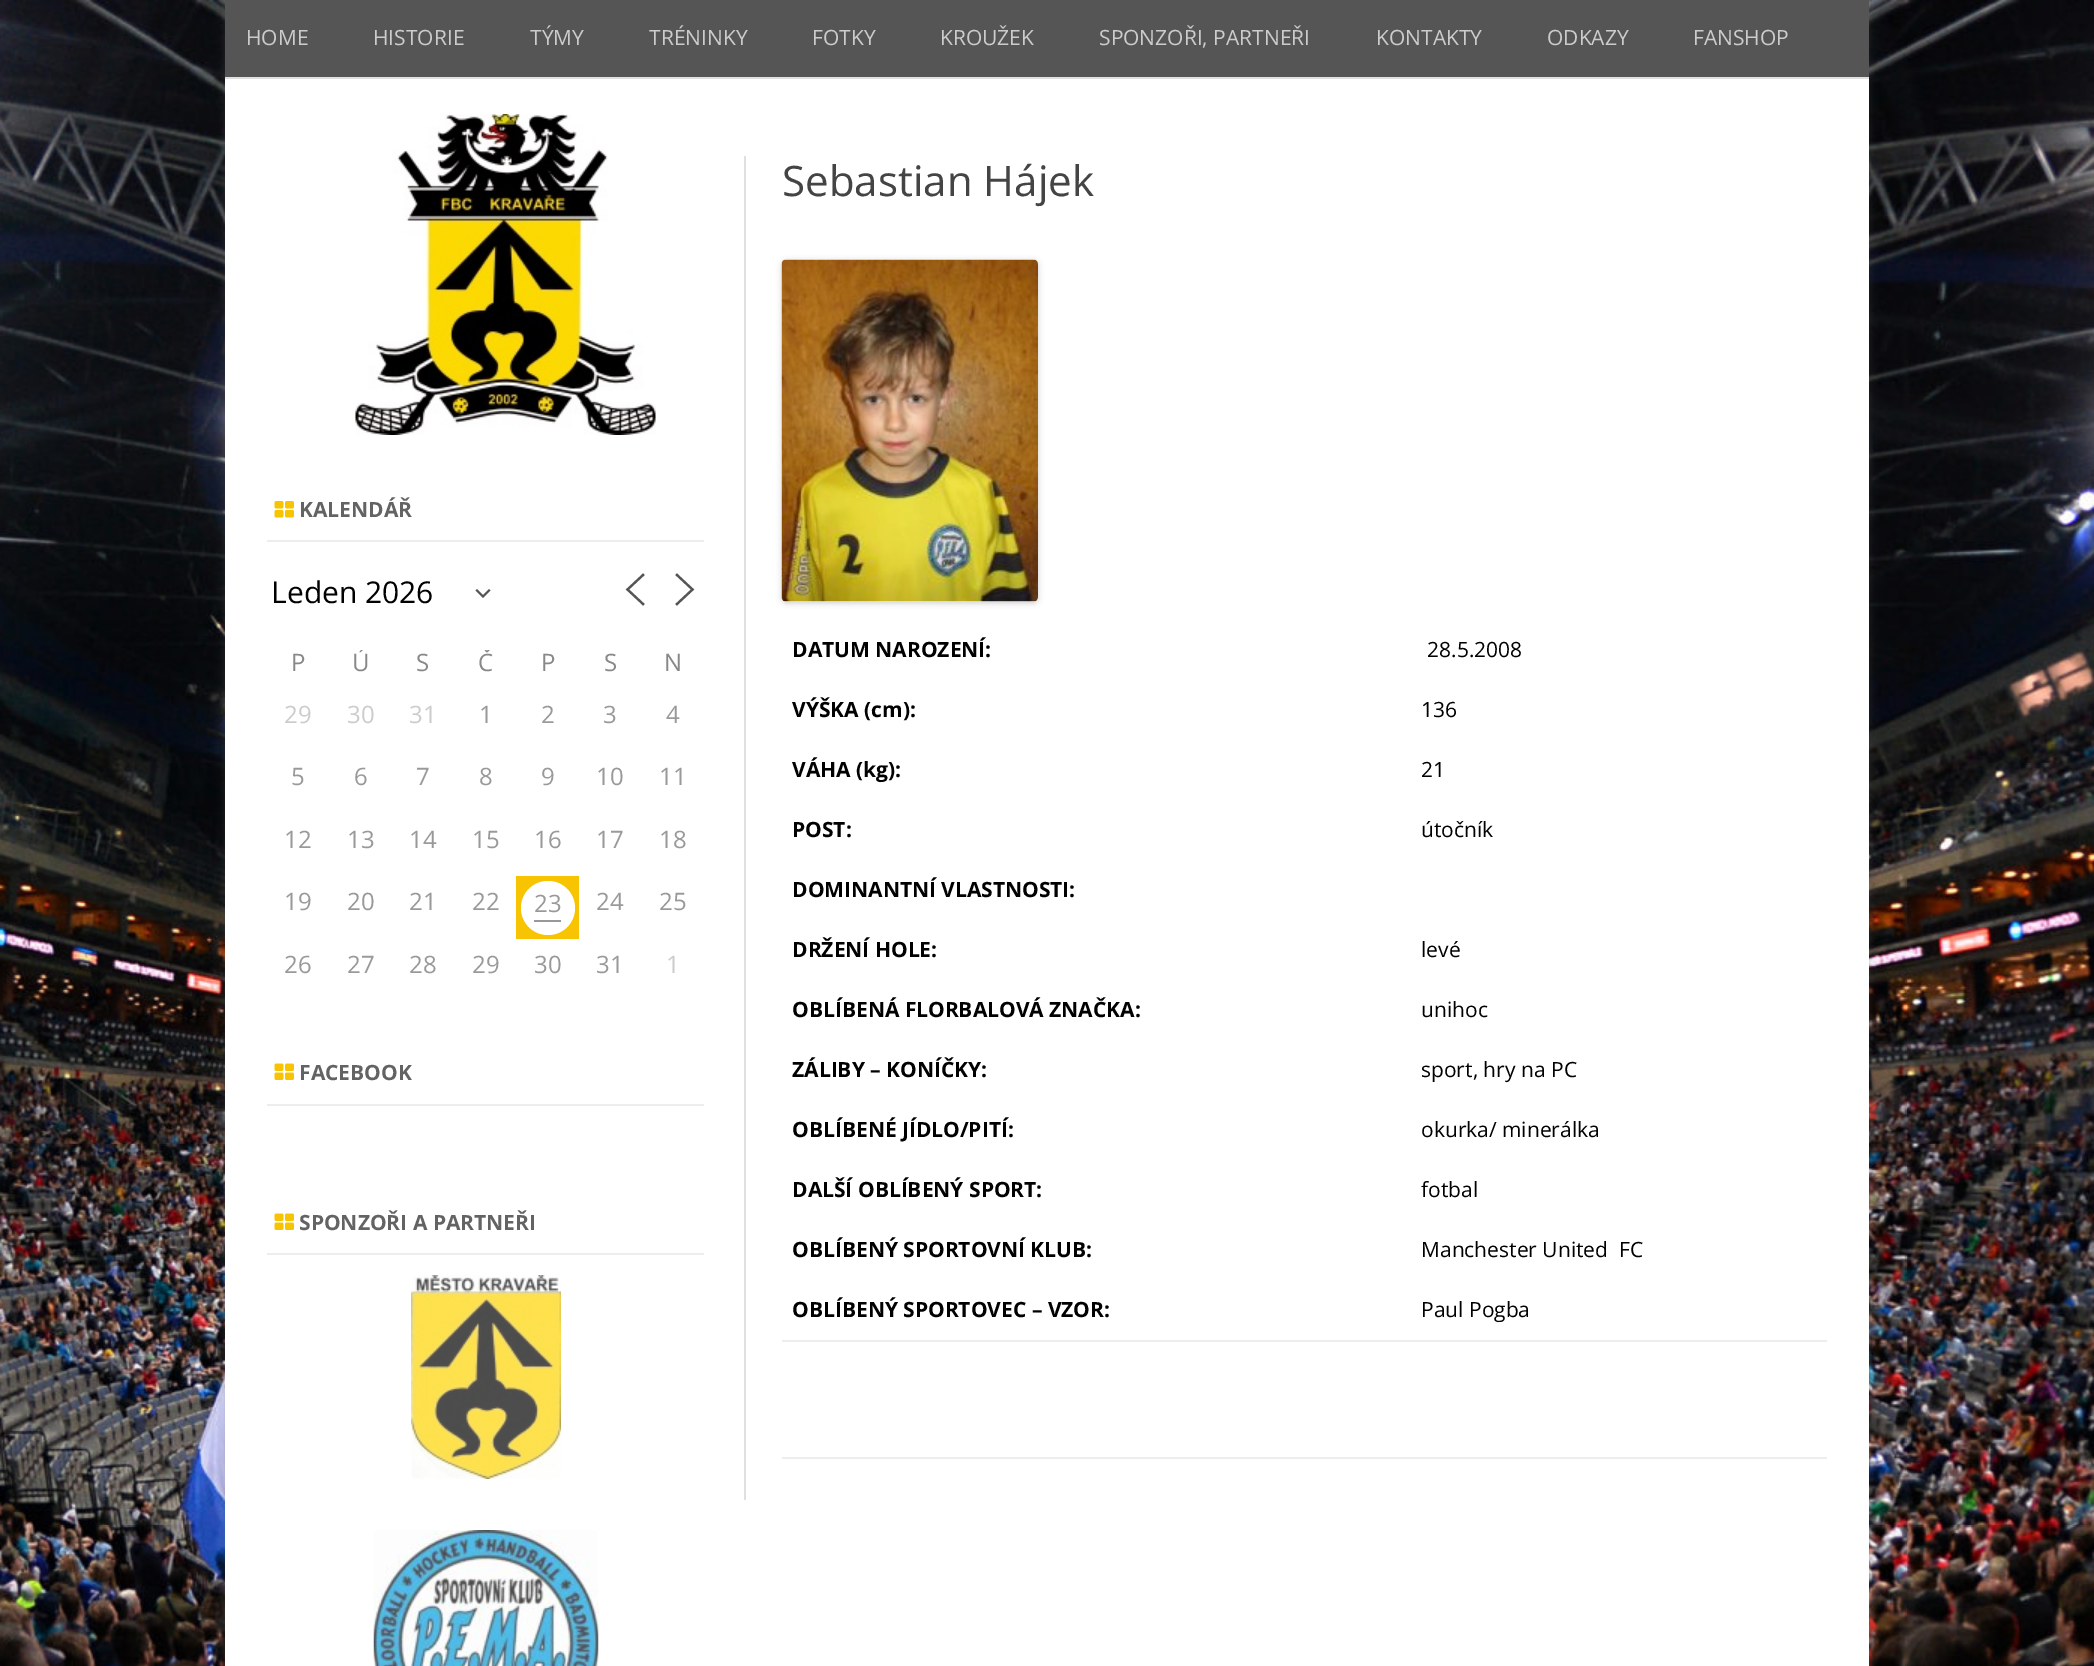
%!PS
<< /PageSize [2094 1666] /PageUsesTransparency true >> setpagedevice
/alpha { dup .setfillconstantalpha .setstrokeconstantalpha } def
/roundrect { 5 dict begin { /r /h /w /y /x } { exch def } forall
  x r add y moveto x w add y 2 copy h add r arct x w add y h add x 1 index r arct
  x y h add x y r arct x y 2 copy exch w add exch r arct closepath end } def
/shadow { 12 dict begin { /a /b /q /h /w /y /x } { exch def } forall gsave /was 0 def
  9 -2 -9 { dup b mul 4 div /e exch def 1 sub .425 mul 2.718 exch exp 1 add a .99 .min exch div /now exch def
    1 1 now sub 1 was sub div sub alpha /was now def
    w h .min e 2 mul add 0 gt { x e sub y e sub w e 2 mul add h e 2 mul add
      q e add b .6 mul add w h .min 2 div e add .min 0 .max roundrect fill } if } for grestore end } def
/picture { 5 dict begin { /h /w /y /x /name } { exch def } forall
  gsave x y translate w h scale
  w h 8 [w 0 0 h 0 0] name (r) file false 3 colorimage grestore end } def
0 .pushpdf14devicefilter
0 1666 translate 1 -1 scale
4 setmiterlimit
1 setgray
0 0 2094 1666 rectfill
(img1.rgb) 0 0 2094 1666 picture
0.392 setgray
225 -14 1644 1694 0 4.5 0.3 shadow
1 setgray
225 79 1644 1587 rectfill
0.333 setgray
225 0 1644 77 rectfill
0.878 setgray
225 77 1644 2 rectfill
/OpenSans-Regular [21 0 0 -21 0 0] selectfont
0.8 setgray
246 45 moveto (HOME) show
373 45 moveto (HISTORIE) show
530 45 moveto (TÝMY) show
649 45 moveto (TRÉNINKY) show
812 45 moveto (FOTKY) show
940 45 moveto (KROUŽEK) show
1099 45 moveto (SPONZOŘI, PARTNEŘI) show
1376 45 moveto (KONTAKTY) show
1547 45 moveto (ODKAZY) show
1693 45 moveto (FANSHOP) show
(img2.rgb) 355 114 301 321 picture
0.878 setgray
744 156 2 1344 rectfill
0.929 setgray
782 1457 1045 2 rectfill
/OpenSans-Regular [42 0 0 -42 0 0] selectfont
0.267 setgray
782 196 moveto (Sebastian Hájek) show
0 setgray
782 261 256 342 5 3 0.2 shadow
(img3.rgb) 781 259 257 343 picture
0.929 setgray
782 1340 1045 2 rectfill
/OpenSans-Bold [21 0 0 -21 0 0] selectfont
0 setgray
792 657 moveto (DATUM NAROZENÍ:) show
/OpenSans-Regular [21 0 0 -21 0 0] selectfont
1427 657 moveto (28.5.2008) show
/OpenSans-Bold [21 0 0 -21 0 0] selectfont
792 717 moveto (VÝŠKA \(cm\):) show
/OpenSans-Regular [21 0 0 -21 0 0] selectfont
1421 717 moveto (136) show
/OpenSans-Bold [21 0 0 -21 0 0] selectfont
792 777 moveto (VÁHA \(kg\):) show
/OpenSans-Regular [21 0 0 -21 0 0] selectfont
1421 777 moveto (21) show
/OpenSans-Bold [21 0 0 -21 0 0] selectfont
792 837 moveto (POST:) show
/OpenSans-Regular [21 0 0 -21 0 0] selectfont
1421 837 moveto (útočník) show
/OpenSans-Bold [21 0 0 -21 0 0] selectfont
792 897 moveto (DOMINANTNÍ VLASTNOSTI:) show
792 957 moveto (DRŽENÍ HOLE:) show
/OpenSans-Regular [21 0 0 -21 0 0] selectfont
1421 957 moveto (levé) show
/OpenSans-Bold [21 0 0 -21 0 0] selectfont
792 1017 moveto (OBLÍBENÁ FLORBALOVÁ ZNAČKA:) show
/OpenSans-Regular [21 0 0 -21 0 0] selectfont
1421 1017 moveto (unihoc) show
/OpenSans-Bold [21 0 0 -21 0 0] selectfont
792 1077 moveto (ZÁLIBY – KONÍČKY:) show
/OpenSans-Regular [21 0 0 -21 0 0] selectfont
1421 1077 moveto (sport, hry na PC) show
/OpenSans-Bold [21 0 0 -21 0 0] selectfont
792 1137 moveto (OBLÍBENÉ JÍDLO/PITÍ:) show
/OpenSans-Regular [21 0 0 -21 0 0] selectfont
1421 1137 moveto (okurka/ minerálka) show
/OpenSans-Bold [21 0 0 -21 0 0] selectfont
792 1197 moveto (DALŠÍ OBLÍBENÝ SPORT:) show
/OpenSans-Regular [21 0 0 -21 0 0] selectfont
1421 1197 moveto (fotbal) show
/OpenSans-Bold [21 0 0 -21 0 0] selectfont
792 1257 moveto (OBLÍBENÝ SPORTOVNÍ KLUB:) show
/OpenSans-Regular [21 0 0 -21 0 0] selectfont
1421 1257 moveto (Manchester United  FC) show
/OpenSans-Bold [21 0 0 -21 0 0] selectfont
792 1317 moveto (OBLÍBENÝ SPORTOVEC – VZOR:) show
/OpenSans-Regular [21 0 0 -21 0 0] selectfont
1421 1317 moveto (Paul Pogba) show
0.929 setgray
267 540 437 2 rectfill
(img4.rgb) 274 501 20 17 picture
/OpenSans-Bold [21 0 0 -21 0 0] selectfont
0.388 setgray
299 517 moveto (KALENDÁŘ) show
0.333 setgray
2 setlinewidth
2 setlinecap
newpath 477 590.5 moveto 483 596.5 lineto 489 590.5 lineto stroke
/OpenSans-Regular [30 0 0 -30 0 0] selectfont
0 setgray
271 603 moveto (Leden 2026) show
0.333 setgray
2.2 setlinewidth
newpath 643 604 moveto 627.5 589.5 lineto 643 575 lineto stroke
newpath 677 604 moveto 692.5 589.5 lineto 677 575 lineto stroke
/OpenSans-Regular [24 0 0 -24 0 0] selectfont
0.533 setgray
291 671 moveto (P) show
gsave
330 650 62 24 rectclip
352 671 moveto (Ú) show
grestore
416 671 moveto (S) show
gsave
455 650 61 24 rectclip
478 671 moveto (Č) show
grestore
541 671 moveto (P) show
604 671 moveto (S) show
664 671 moveto (N) show
0.8 setgray
284 723 moveto (29) show
347 723 moveto (30) show
409 723 moveto (31) show
0.6 setgray
479 723 moveto (1) show
541 723 moveto (2) show
603 723 moveto (3) show
666 723 moveto (4) show
291 785 moveto (5) show
354 785 moveto (6) show
416 785 moveto (7) show
479 785 moveto (8) show
541 785 moveto (9) show
596 785 moveto (10) show
659 785 moveto (11) show
284 848 moveto (12) show
347 848 moveto (13) show
409 848 moveto (14) show
472 848 moveto (15) show
534 848 moveto (16) show
596 848 moveto (17) show
659 848 moveto (18) show
284 910 moveto (19) show
347 910 moveto (20) show
409 910 moveto (21) show
472 910 moveto (22) show
0.973 0.765 0 setrgbcolor
516 876 63 63 rectfill
1 setgray
newpath 548 908 27 0 360 arc closepath fill
0.6 setgray
534 912 moveto (23) show
534 920 27 2 rectfill
596 910 moveto (24) show
659 910 moveto (25) show
284 973 moveto (26) show
347 973 moveto (27) show
409 973 moveto (28) show
472 973 moveto (29) show
534 973 moveto (30) show
596 973 moveto (31) show
0.8 setgray
666 973 moveto (1) show
0.929 setgray
267 1104 437 2 rectfill
(img5.rgb) 274 1063 20 17 picture
/OpenSans-Bold [21 0 0 -21 0 0] selectfont
0.388 setgray
299 1080 moveto (FACEBOOK) show
0.929 setgray
267 1253 437 2 rectfill
(img5.rgb) 274 1213 20 17 picture
0.388 setgray
299 1230 moveto (SPONZOŘI A PARTNEŘI) show
(img6.rgb) 411 1275 150 204 picture
(img7.rgb) 373 1530 226 136 picture
.poppdf14devicefilter showpage
